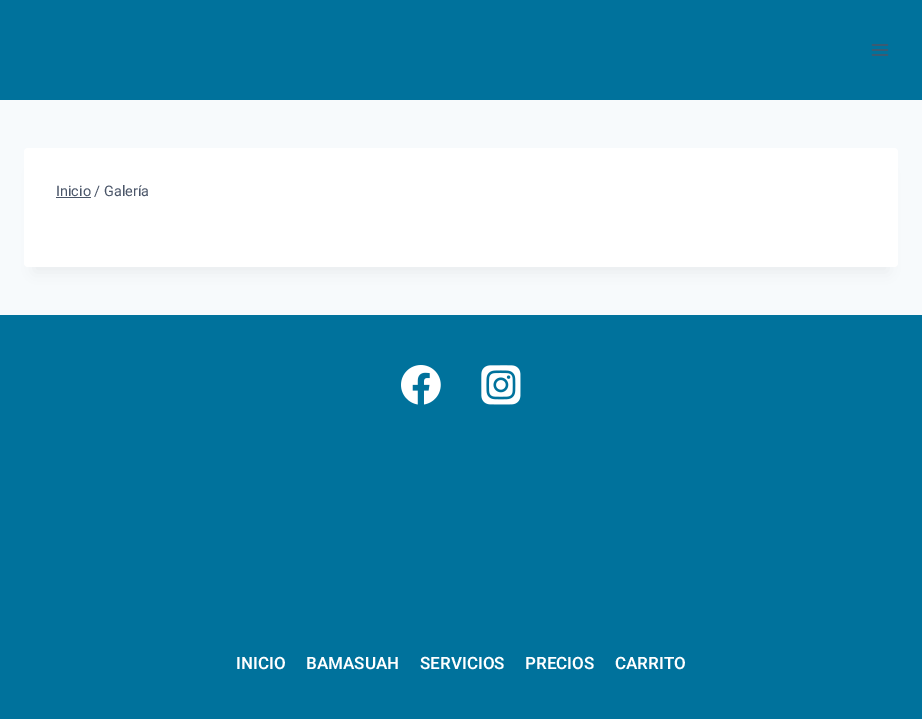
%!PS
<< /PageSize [922 719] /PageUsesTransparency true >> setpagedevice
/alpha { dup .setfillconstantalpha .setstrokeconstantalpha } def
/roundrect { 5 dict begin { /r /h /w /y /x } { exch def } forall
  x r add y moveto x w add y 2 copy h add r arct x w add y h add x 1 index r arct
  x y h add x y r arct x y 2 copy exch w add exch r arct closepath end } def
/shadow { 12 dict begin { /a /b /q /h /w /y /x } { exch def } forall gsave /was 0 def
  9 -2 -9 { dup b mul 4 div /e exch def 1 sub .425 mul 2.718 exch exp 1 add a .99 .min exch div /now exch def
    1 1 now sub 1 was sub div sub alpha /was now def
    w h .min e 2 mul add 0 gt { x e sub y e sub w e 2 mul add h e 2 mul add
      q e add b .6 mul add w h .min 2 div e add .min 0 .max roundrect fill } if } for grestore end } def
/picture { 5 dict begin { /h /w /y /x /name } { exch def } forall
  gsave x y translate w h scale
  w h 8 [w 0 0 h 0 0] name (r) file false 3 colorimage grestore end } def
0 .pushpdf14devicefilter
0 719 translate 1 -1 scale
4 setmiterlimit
0.969 0.98 0.988 setrgbcolor
0 0 922 719 rectfill
0 0.447 0.612 setrgbcolor
0 0 922 100 rectfill
(img1.rgb) 871 44 18 12 picture
0 setgray
34 173 854 99 0 7.5 0.05 shadow
1 setgray
24 148 874 119 4 roundrect fill
/Roboto-Regular [14.5 0 0 -14.5 0 0] selectfont
0.29 0.333 0.408 setrgbcolor
56 196 moveto (Inicio / Galería) show
56 197 35 1 rectfill
0 0.447 0.612 setrgbcolor
0 315 922 404 rectfill
(img2.rgb) 401 365 40 40 picture
(img3.rgb) 481 365 40 40 picture
/Roboto-SemiBold [17 0 0 -17 0 0] selectfont
1 setgray
236 669 moveto (INICIO) show
306 669 moveto (BAMASUAH) show
420 669 moveto (SERVICIOS) show
525 669 moveto (PRECIOS) show
615 669 moveto (CARRITO) show
.poppdf14devicefilter showpage
